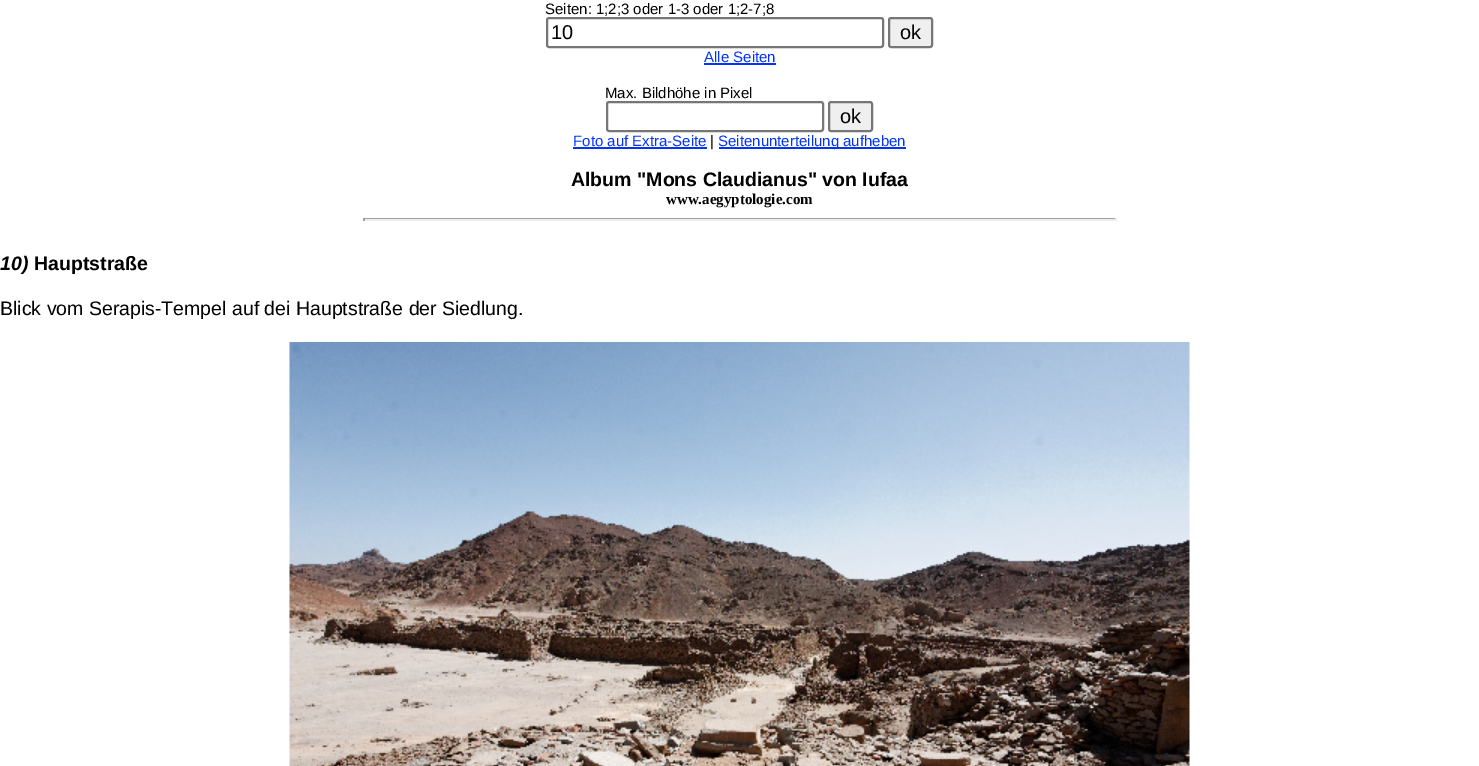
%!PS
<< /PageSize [1479 766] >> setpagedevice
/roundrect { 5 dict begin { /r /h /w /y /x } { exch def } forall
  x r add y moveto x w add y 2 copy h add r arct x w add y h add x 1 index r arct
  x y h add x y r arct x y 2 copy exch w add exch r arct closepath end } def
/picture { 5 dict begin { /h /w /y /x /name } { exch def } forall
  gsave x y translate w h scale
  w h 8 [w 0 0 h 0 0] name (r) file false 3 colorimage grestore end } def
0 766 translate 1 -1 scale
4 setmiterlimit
1 setgray
0 0 1479 766 rectfill
/LiberationSans-Regular [15 0 0 -15 0 0] selectfont
0 setgray
545 14 moveto (Seiten: 1;2;3 oder 1-3 oder 1;2-7;8) show
0.463 setgray
2 setlinewidth
547 18 336 29 2 roundrect stroke
/LiberationSans-Regular [20 0 0 -20 0 0] selectfont
0 setgray
551 39 moveto (10) show
0.937 setgray
889 18 43 29 2 roundrect gsave fill grestore
0.463 setgray
stroke
0 setgray
900 39 moveto (ok) show
/LiberationSans-Regular [15 0 0 -15 0 0] selectfont
0 0.2 1 setrgbcolor
704 62 moveto (Alle Seiten) show
704 63 72 2 rectfill
0 setgray
605 98 moveto (Max. Bildhöhe in Pixel) show
0.463 setgray
607 102 216 29 2 roundrect stroke
0.937 setgray
829 102 43 29 2 roundrect gsave fill grestore
0.463 setgray
stroke
/LiberationSans-Regular [20 0 0 -20 0 0] selectfont
0 setgray
840 123 moveto (ok) show
/LiberationSans-Regular [15 0 0 -15 0 0] selectfont
0 0.2 1 setrgbcolor
573 146 moveto (Foto auf Extra-Seite) show
573 147 134 2 rectfill
0 setgray
710 146 moveto (|) show
0 0.2 1 setrgbcolor
719 147 187 2 rectfill
718 146 moveto (Seitenunterteilung aufheben) show
/LiberationSans-Bold [19.5 0 0 -19.5 0 0] selectfont
0 setgray
571 186 moveto (Album "Mons Claudianus" von Iufaa) show
/LiberationSerif-Bold [15 0 0 -15 0 0] selectfont
666 204 moveto (www.aegyptologie.com) show
0.624 setgray
363 218 753 1 rectfill
0.933 setgray
1115 218 2 3 rectfill
363 219 753 2 rectfill
0.624 setgray
363 218 2 3 rectfill
/LiberationSans-BoldItalic [19.5 0 0 -19.5 0 0] selectfont
0 setgray
0 270 moveto (10\)) show
/LiberationSans-Bold [19.5 0 0 -19.5 0 0] selectfont
34 270 moveto (Hauptstraße) show
/LiberationSans-Regular [19.5 0 0 -19.5 0 0] selectfont
0 315 moveto (Blick vom Serapis-Tempel auf dei Hauptstraße der Siedlung.) show
(img1.rgb) 289 342 901 424 picture
showpage
